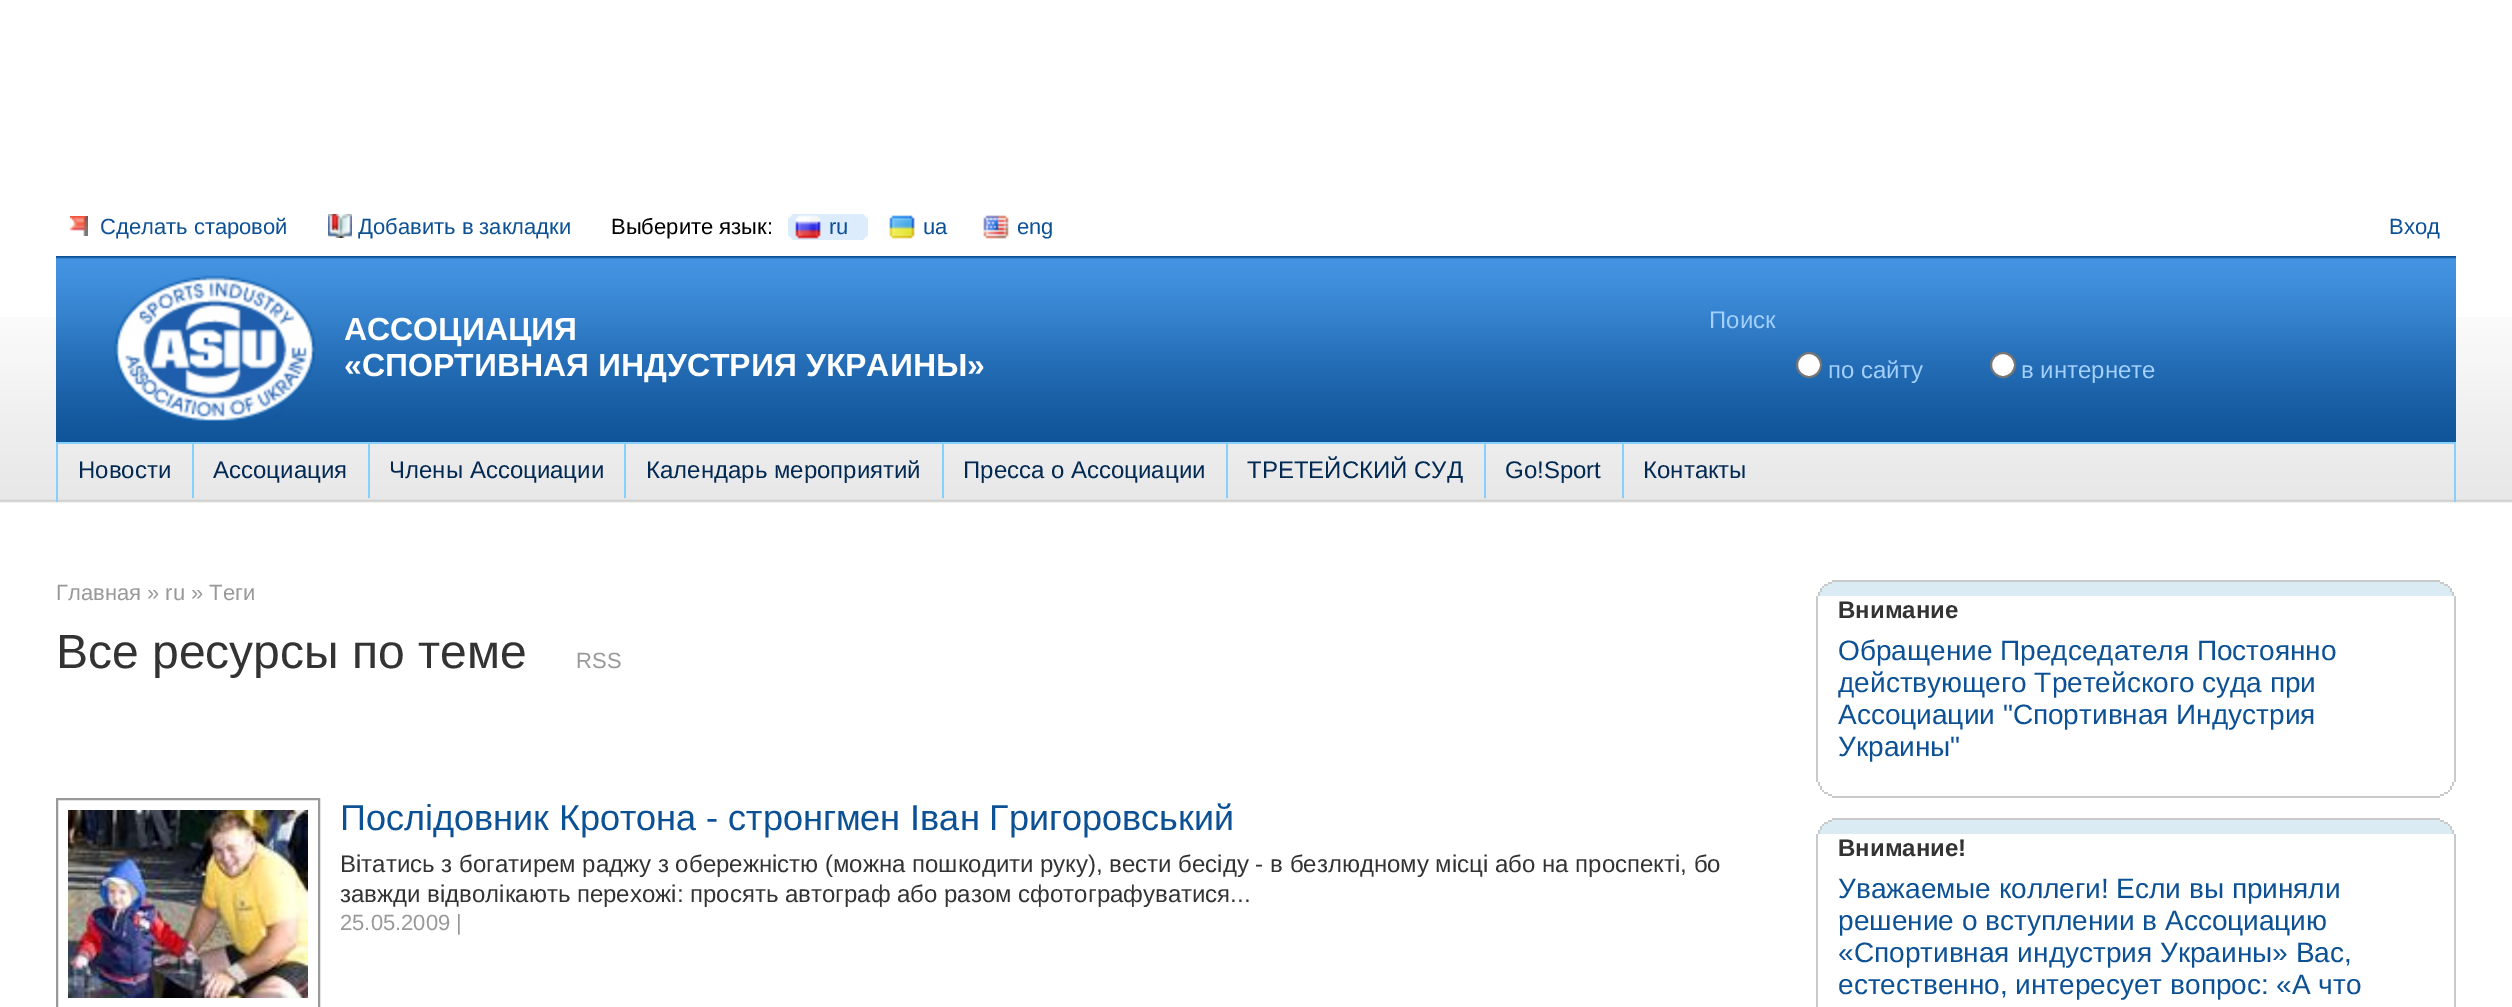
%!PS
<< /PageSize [2512 1007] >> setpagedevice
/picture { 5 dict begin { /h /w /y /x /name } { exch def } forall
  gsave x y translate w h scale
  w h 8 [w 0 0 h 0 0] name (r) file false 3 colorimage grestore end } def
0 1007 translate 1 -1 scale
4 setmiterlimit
1 setgray
0 0 2512 1007 rectfill
(img1.rgb) 0 317 2512 186 picture
(img2.rgb) 70 216 18 20 picture
/LiberationSans-Regular [22 0 0 -22 0 0] selectfont
0.051 0.318 0.584 setrgbcolor
100 234 moveto (Сделать старовой) show
(img3.rgb) 328 214 24 24 picture
358 234 moveto (Добавить в закладки) show
0 setgray
611 234 moveto (Выберите язык:) show
(img4.rgb) 788 214 80 26 picture
0.051 0.318 0.584 setrgbcolor
829 234 moveto (ru) show
(img5.rgb) 882 215 33 25 picture
923 234 moveto (ua) show
(img6.rgb) 983 215 26 24 picture
1017 234 moveto (eng) show
2389 234 moveto (Вход) show
(img7.rgb) 56 256 2400 186 picture
(img8.rgb) 114 275 202 147 picture
/LiberationSans-Bold [32 0 0 -32 0 0] selectfont
1 setgray
344 340 moveto (АССОЦИАЦИЯ) show
344 376 moveto («СПОРТИВНАЯ ИНДУСТРИЯ УКРАИНЫ») show
/LiberationSans-Regular [24 0 0 -24 0 0] selectfont
0.639 0.82 1 setrgbcolor
1709 328 moveto (Поиск) show
1 setgray
newpath 1809 365 12 0 360 arc closepath gsave fill grestore
0.463 setgray
2 setlinewidth
stroke
0.639 0.82 1 setrgbcolor
1828 378 moveto (по сайту) show
1 setgray
newpath 2003 365 12 0 360 arc closepath gsave fill grestore
0.463 setgray
stroke
0.639 0.82 1 setrgbcolor
2021 378 moveto (в интернете) show
0.529 0.816 0.992 setrgbcolor
56 442 2400 2 rectfill
2454 442 2 60 rectfill
56 442 2 60 rectfill
192 444 2 54 rectfill
0.004 0.161 0.322 setrgbcolor
78 478 moveto (Новости) show
0.529 0.816 0.992 setrgbcolor
368 444 2 54 rectfill
0.004 0.161 0.322 setrgbcolor
213 478 moveto (Ассоциация) show
0.529 0.816 0.992 setrgbcolor
624 444 2 54 rectfill
0.004 0.161 0.322 setrgbcolor
389 478 moveto (Члены Ассоциации) show
0.529 0.816 0.992 setrgbcolor
942 444 2 54 rectfill
0.004 0.161 0.322 setrgbcolor
646 478 moveto (Календарь мероприятий) show
0.529 0.816 0.992 setrgbcolor
1226 444 2 54 rectfill
0.004 0.161 0.322 setrgbcolor
963 478 moveto (Пресса о Ассоциации) show
0.529 0.816 0.992 setrgbcolor
1484 444 2 54 rectfill
0.004 0.161 0.322 setrgbcolor
1247 478 moveto (ТРЕТЕЙСКИЙ СУД) show
0.529 0.816 0.992 setrgbcolor
1622 444 2 54 rectfill
0.004 0.161 0.322 setrgbcolor
1505 478 moveto (Go!Sport) show
1643 478 moveto (Контакты) show
/LiberationSans-Regular [22 0 0 -22 0 0] selectfont
0.6 setgray
56 600 moveto (Главная » ru » Теги) show
/LiberationSans-Regular [48 0 0 -48 0 0] selectfont
0.2 setgray
56 668 moveto (Все ресурсы по теме) show
/LiberationSans-Regular [22 0 0 -22 0 0] selectfont
0.6 setgray
576 668 moveto (RSS) show
57 799 262 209 rectstroke
(img9.rgb) 68 810 240 188 picture
/LiberationSans-Regular [36 0 0 -36 0 0] selectfont
0.051 0.318 0.584 setrgbcolor
340 830 moveto (Послідовник Кротона - стронгмен Іван Григоровський) show
/LiberationSans-Regular [24 0 0 -24 0 0] selectfont
0.2 setgray
340 872 moveto (Вітатись з богатирем раджу з обережністю \(можна пошкодити руку\), вести бесіду - в безлюдному місці або на проспекті, бо) show
340 902 moveto (завжди відволікають перехожі: просять автограф або разом сфотографуватися...) show
/LiberationSans-Regular [22 0 0 -22 0 0] selectfont
0.6 setgray
340 930 moveto (25.05.2009 |) show
0.792 setgray
1832 580 608 2 rectfill
0.859 0.922 0.957 setrgbcolor
1828 582 616 2 rectfill
0.792 setgray
2440 582 4 2 rectfill
1828 582 4 2 rectfill
0.859 0.922 0.957 setrgbcolor
1824 584 624 2 rectfill
0.792 setgray
2444 584 4 2 rectfill
1824 584 4 2 rectfill
0.859 0.922 0.957 setrgbcolor
1822 586 628 2 rectfill
0.792 setgray
2448 586 2 2 rectfill
1822 586 2 2 rectfill
0.859 0.922 0.957 setrgbcolor
1820 588 632 4 rectfill
0.792 setgray
2450 588 2 4 rectfill
1820 588 2 4 rectfill
0.859 0.922 0.957 setrgbcolor
1818 592 636 4 rectfill
0.792 setgray
2452 592 2 4 rectfill
1818 592 2 4 rectfill
2454 596 2 186 rectfill
1816 596 2 186 rectfill
/LiberationSans-Bold [24 0 0 -24 0 0] selectfont
0.2 setgray
1838 618 moveto (Внимание) show
/LiberationSans-Regular [28 0 0 -28 0 0] selectfont
0.051 0.318 0.584 setrgbcolor
1838 660 moveto (Обращение Председателя Постоянно) show
1838 692 moveto (действующего Третейского суда при) show
1838 724 moveto (Ассоциации "Спортивная Индустрия) show
1838 756 moveto (Украины") show
0.792 setgray
2452 782 2 4 rectfill
1818 782 2 4 rectfill
2450 786 2 4 rectfill
1820 786 2 4 rectfill
2448 790 2 2 rectfill
1822 790 2 2 rectfill
2444 792 4 2 rectfill
1824 792 4 2 rectfill
2440 794 4 2 rectfill
1828 794 4 2 rectfill
1832 796 608 2 rectfill
1832 818 608 2 rectfill
0.859 0.922 0.957 setrgbcolor
1828 820 616 2 rectfill
0.792 setgray
2440 820 4 2 rectfill
1828 820 4 2 rectfill
0.859 0.922 0.957 setrgbcolor
1824 822 624 2 rectfill
0.792 setgray
2444 822 4 2 rectfill
1824 822 4 2 rectfill
0.859 0.922 0.957 setrgbcolor
1822 824 628 2 rectfill
0.792 setgray
2448 824 2 2 rectfill
1822 824 2 2 rectfill
0.859 0.922 0.957 setrgbcolor
1820 826 632 4 rectfill
0.792 setgray
2450 826 2 4 rectfill
1820 826 2 4 rectfill
0.859 0.922 0.957 setrgbcolor
1818 830 636 4 rectfill
0.792 setgray
2452 830 2 4 rectfill
1818 830 2 4 rectfill
2454 834 2 173 rectfill
1816 834 2 173 rectfill
/LiberationSans-Bold [24 0 0 -24 0 0] selectfont
0.2 setgray
1838 856 moveto (Внимание!) show
/LiberationSans-Regular [28 0 0 -28 0 0] selectfont
0.051 0.318 0.584 setrgbcolor
1838 898 moveto (Уважаемые коллеги! Если вы приняли) show
1838 930 moveto (решение о вступлении в Ассоциацию) show
1838 962 moveto («Спортивная индустрия Украины» Вас,) show
1838 994 moveto (естественно, интересует вопрос: «А что) show
showpage
